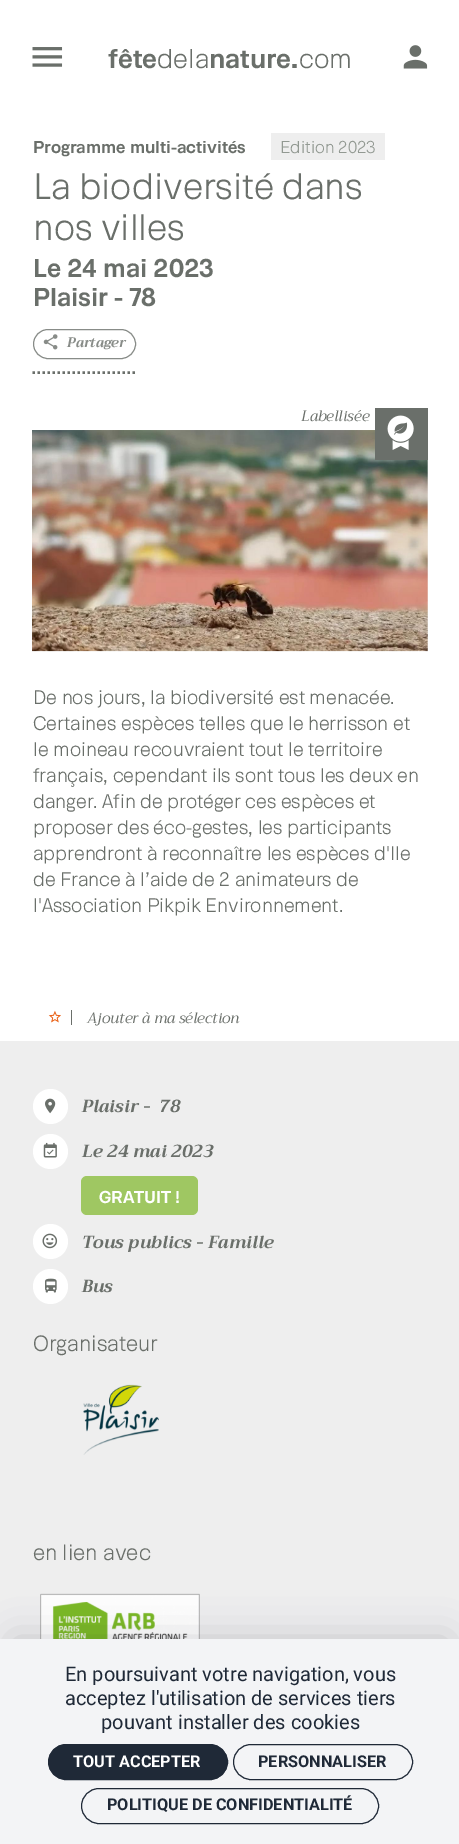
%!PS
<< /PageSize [459 1844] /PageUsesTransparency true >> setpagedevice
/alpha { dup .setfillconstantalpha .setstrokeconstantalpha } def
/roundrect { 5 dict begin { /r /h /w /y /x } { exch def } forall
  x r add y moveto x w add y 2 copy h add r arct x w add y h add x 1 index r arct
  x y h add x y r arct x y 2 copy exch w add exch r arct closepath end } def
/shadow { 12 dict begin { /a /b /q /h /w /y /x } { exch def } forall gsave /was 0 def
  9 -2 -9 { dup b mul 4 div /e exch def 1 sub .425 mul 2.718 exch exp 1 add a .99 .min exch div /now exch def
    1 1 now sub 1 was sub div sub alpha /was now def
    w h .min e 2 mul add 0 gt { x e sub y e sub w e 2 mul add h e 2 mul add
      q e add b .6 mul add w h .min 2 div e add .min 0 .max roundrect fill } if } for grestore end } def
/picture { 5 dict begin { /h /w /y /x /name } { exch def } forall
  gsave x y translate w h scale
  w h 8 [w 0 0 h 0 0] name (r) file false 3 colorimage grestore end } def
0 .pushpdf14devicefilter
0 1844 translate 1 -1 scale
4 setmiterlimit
1 setgray
0 0 459 1844 rectfill
(img1.rgb) 32 47 31 20 picture
/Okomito-Bold [27.5 0 0 -27.5 0 0] selectfont
0.416 0.435 0.416 setrgbcolor
108 68 moveto (fête) show
/Okomito-Light [27.5 0 0 -27.5 0 0] selectfont
157 68 moveto (dela) show
/Okomito-Bold [27.5 0 0 -27.5 0 0] selectfont
209 68 moveto (nature.) show
/Okomito-Light [27.5 0 0 -27.5 0 0] selectfont
299 68 moveto (com) show
(img2.rgb) 403 45 25 24 picture
/Okomito-Bold [17.5 0 0 -17.5 0 0] selectfont
33 153 moveto (Programme multi-activités) show
0.933 setgray
271 133 114 27 rectfill
/Okomito-Light [17.5 0 0 -17.5 0 0] selectfont
0.573 0.6 0.573 setrgbcolor
280 153 moveto (Edition 2023) show
/Okomito-Light [37.5 0 0 -37.5 0 0] selectfont
0.416 0.435 0.416 setrgbcolor
33 199 moveto (La biodiversité dans) show
33 240 moveto (nos villes) show
/Okomito-Bold [26.25 0 0 -26.25 0 0] selectfont
33 277 moveto (Le 24 mai 2023) show
33 306 moveto (Plaisir - 78) show
0.533 0.549 0.533 setrgbcolor
33.5 329.5 102 29 14.5 roundrect stroke
(img3.rgb) 43 334 15 16 picture
/Trirong-BoldItalic [13.75 0 0 -13.75 0 0] selectfont
67 347 moveto (Partager) show
0.416 0.435 0.416 setrgbcolor
2.5 setlinewidth
[2.5 2.5] 0 setdash
newpath 32.5 372.5 moveto 137.5 372.5 lineto stroke
/Trirong-Italic [15 0 0 -15 0 0] selectfont
301 421 moveto (Labellisée) show
(img5.rgb) 32 430 396 222 picture
375 408 53 52 rectfill
(img4.rgb) 387 415 27 35 picture
/Okomito-Light [20 0 0 -20 0 0] selectfont
33 704 moveto (De nos jours, la biodiversité est menacée.) show
33 730 moveto (Certaines espèces telles que le herrisson et) show
33 756 moveto (le moineau recouvraient tout le territoire) show
33 782 moveto (français, cependant ils sont tous les deux en) show
33 808 moveto (danger. Afin de protéger ces espèces et) show
33 834 moveto (proposer des éco-gestes, les participants) show
33 860 moveto (apprendront à reconnaître les espèces d'Ile) show
33 886 moveto (de France à l’aide de 2 animateurs de) show
33 912 moveto (l'Association Pikpik Environnement.) show
(img6.rgb) 48 1010 13 13 picture
71 1010 1 15 rectfill
/Trirong-Italic [14.9 0 0 -14.9 0 0] selectfont
87 1023 moveto (Ajouter à ma sélection) show
0.933 setgray
0 1041 459 598 rectfill
1 setgray
newpath 50.5 1106.5 17.5 0 360 arc closepath fill
(img7.rgb) 45 1098 11 16 picture
/Trirong-BoldItalic [17.5 0 0 -17.5 0 0] selectfont
0.416 0.435 0.416 setrgbcolor
82 1112 moveto (Plaisir -) show
159 1112 moveto (78) show
1 setgray
newpath 50.5 1151.5 17.5 0 360 arc closepath fill
(img8.rgb) 43 1142 14 16 picture
0.416 0.435 0.416 setrgbcolor
82 1157 moveto (Le 24 mai 2023) show
0.624 0.78 0.384 setrgbcolor
81 1176 117 39 6 roundrect fill
/Okomito-Bold [17.5 0 0 -17.5 0 0] selectfont
1 setgray
99 1203 moveto (GRATUIT !) show
newpath 50.5 1241.5 17.5 0 360 arc closepath fill
(img9.rgb) 42 1233 16 16 picture
/Trirong-BoldItalic [17.5 0 0 -17.5 0 0] selectfont
0.416 0.435 0.416 setrgbcolor
82 1248 moveto (Tous publics - Famille) show
1 setgray
newpath 50.5 1286.5 17.5 0 360 arc closepath fill
(img10.rgb) 45 1278 12 15 picture
0.416 0.435 0.416 setrgbcolor
82 1292 moveto (Bus) show
/Okomito-Light [22.5 0 0 -22.5 0 0] selectfont
33 1351 moveto (Organisateur) show
(img11.rgb) 83 1384 76 71 picture
33 1560 moveto (en lien avec) show
(img12.rgb) 40 1593 160 46 picture
0.133 0.133 0.188 setrgbcolor
13 1639 435 181 0 19 0.2 shadow
0.953 0.957 0.965 setrgbcolor
0 1639 459 205 rectfill
/Roboto-Regular [20 0 0 -20 0 0] selectfont
0.122 0.161 0.216 setrgbcolor
65 1681 moveto (En poursuivant votre navigation, vous) show
65 1705 moveto (acceptez l'utilisation de services tiers) show
101 1729 moveto (pouvant installer des cookies) show
48.5 1744.5 179 35 17.5 roundrect gsave fill grestore
1 setlinewidth
[] 0 setdash
stroke
/Roboto-Bold [16.25 0 0 -16.25 0 0] selectfont
1 setgray
73 1767 moveto (TOUT ACCEPTER) show
0.122 0.161 0.216 setrgbcolor
233.5 1744.5 179 35 17.5 roundrect stroke
258 1767 moveto (PERSONNALISER) show
81.5 1788.5 297 35 17.5 roundrect stroke
107 1810 moveto (POLITIQUE DE CONFIDENTIALITÉ) show
.poppdf14devicefilter showpage
